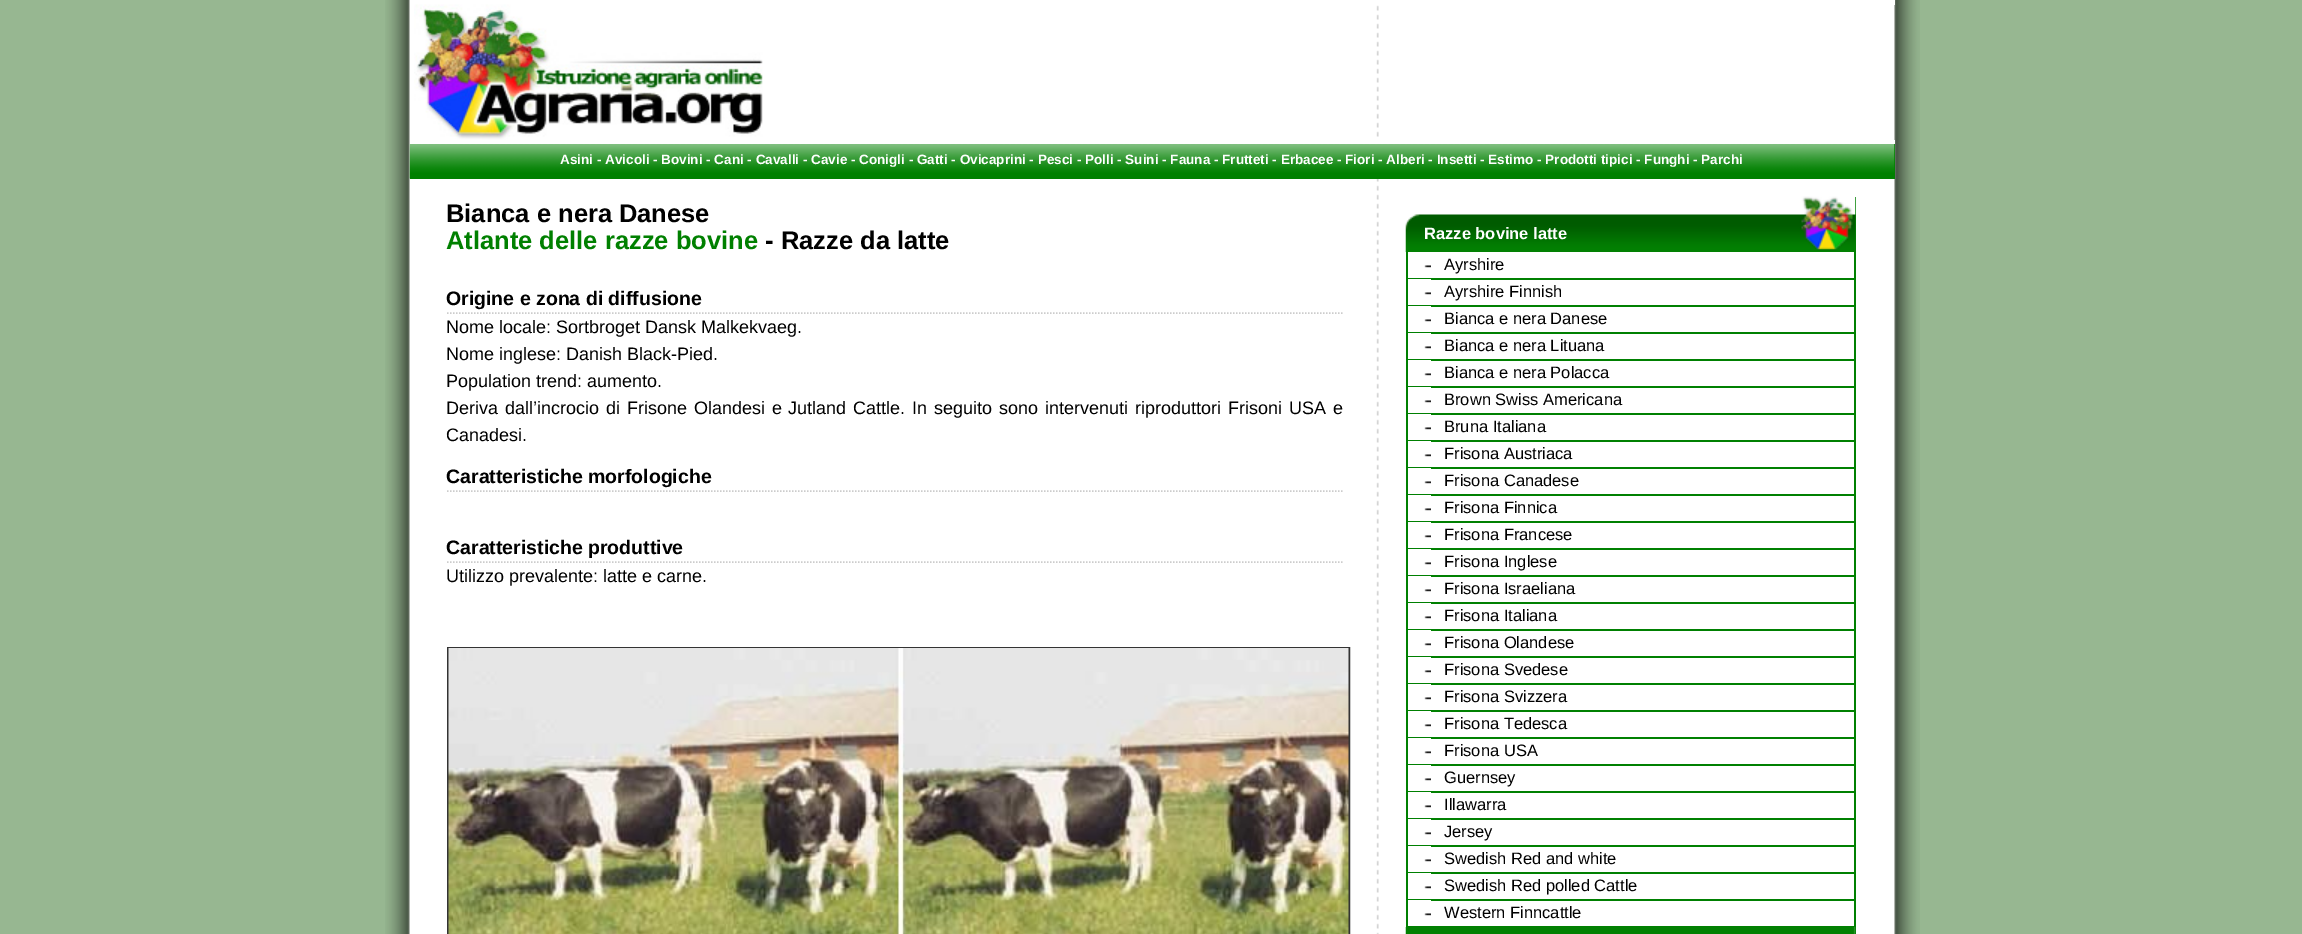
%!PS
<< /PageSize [2302 934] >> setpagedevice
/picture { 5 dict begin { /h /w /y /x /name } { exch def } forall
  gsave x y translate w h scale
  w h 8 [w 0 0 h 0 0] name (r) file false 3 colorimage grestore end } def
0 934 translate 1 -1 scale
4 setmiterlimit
0.592 0.718 0.569 setrgbcolor
0 0 2302 934 rectfill
(img1.rgb) 385 0 1535 934 picture
1 setgray
1376 0 519 5 rectfill
1376 140 519 4 rectfill
(img2.rgb) 414 4 349 136 picture
0 0.502 0 setrgbcolor
410 144 1485 35 rectfill
(img3.rgb) 409 144 1486 35 picture
/LiberationSans-Bold [13.5 0 0 -13.5 0 0] selectfont
1 setgray
560 164 moveto (Asini - Avicoli - Bovini - Cani - Cavalli - Cavie - Conigli - Gatti - Ovicaprini - Pesci - Polli - Suini - Fauna - Frutteti - Erbacee - Fiori - Alberi - Insetti - Estimo - Prodotti tipici - Funghi - Parchi) show
/LiberationSans-Bold [25.5 0 0 -25.5 0 0] selectfont
0 setgray
446 222 moveto (Bianca e nera Danese) show
0 0.502 0 setrgbcolor
446 249 moveto (Atlante delle razze bovine) show
0 setgray
765 249 moveto (- Razze da latte) show
0.8 setgray
1.5 setlinewidth
[1.5 1.5] 0 setdash
newpath 447 313 moveto 1344 313 lineto stroke
/LiberationSans-Bold [19.5 0 0 -19.5 0 0] selectfont
0 setgray
446 305 moveto (Origine e zona di diffusione) show
/LiberationSans-Regular [18 0 0 -18 0 0] selectfont
446 333 moveto (Nome locale: Sortbroget Dansk Malkekvaeg.) show
446 360 moveto (Nome inglese: Danish Black-Pied.) show
446 387 moveto (Population trend: aumento.) show
446 414 moveto 1.9 0 32 (Deriva dall’incrocio di Frisone Olandesi e Jutland Cattle. In seguito sono intervenuti riproduttori Frisoni USA e) widthshow
446 441 moveto (Canadesi.) show
0.8 setgray
newpath 447 491 moveto 1344 491 lineto stroke
/LiberationSans-Bold [19.5 0 0 -19.5 0 0] selectfont
0 setgray
446 483 moveto (Caratteristiche morfologiche) show
0.8 setgray
newpath 447 562 moveto 1344 562 lineto stroke
0 setgray
446 554 moveto (Caratteristiche produttive) show
/LiberationSans-Regular [18 0 0 -18 0 0] selectfont
446 582 moveto (Utilizzo prevalente: latte e carne.) show
0.2 setgray
2 setlinewidth
[] 0 setdash
448 648 901 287 rectstroke
(img4.rgb) 448 648 901 286 picture
0 0.502 0.004 setrgbcolor
1855 197 1 55 rectfill
(img5.rgb) 1405 196 451 56 picture
/LiberationSans-Bold [16.5 0 0 -16.5 0 0] selectfont
1 setgray
1424 239 moveto (Razze bovine latte) show
0 0.502 0.004 setrgbcolor
1854 252 2 675 rectfill
(img6.rgb) 1424 265 7 3 picture
1406 278 448 2 rectfill
1406 252 2 27 rectfill
/LiberationSans-Regular [16.5 0 0 -16.5 0 0] selectfont
0 setgray
1444 270 moveto (Ayrshire) show
(img7.rgb) 1408 279 23 16 picture
0 0.502 0.004 setrgbcolor
1406 305 448 2 rectfill
1406 279 2 27 rectfill
0 setgray
1444 297 moveto (Ayrshire Finnish) show
(img7.rgb) 1408 306 23 16 picture
0 0.502 0.004 setrgbcolor
1406 332 448 2 rectfill
1406 306 2 27 rectfill
0 setgray
1444 324 moveto (Bianca e nera Danese) show
(img7.rgb) 1408 333 23 16 picture
0 0.502 0.004 setrgbcolor
1406 359 448 2 rectfill
1406 333 2 27 rectfill
0 setgray
1444 351 moveto (Bianca e nera Lituana) show
(img7.rgb) 1408 360 23 16 picture
0 0.502 0.004 setrgbcolor
1406 386 448 2 rectfill
1406 360 2 27 rectfill
0 setgray
1444 378 moveto (Bianca e nera Polacca) show
(img7.rgb) 1408 387 23 16 picture
0 0.502 0.004 setrgbcolor
1406 413 448 2 rectfill
1406 387 2 27 rectfill
0 setgray
1444 405 moveto (Brown Swiss Americana) show
(img7.rgb) 1408 414 23 16 picture
0 0.502 0.004 setrgbcolor
1406 440 448 2 rectfill
1406 414 2 27 rectfill
0 setgray
1444 432 moveto (Bruna Italiana) show
(img7.rgb) 1408 441 23 16 picture
0 0.502 0.004 setrgbcolor
1406 467 448 2 rectfill
1406 441 2 27 rectfill
0 setgray
1444 459 moveto (Frisona Austriaca) show
(img7.rgb) 1408 468 23 16 picture
0 0.502 0.004 setrgbcolor
1406 494 448 2 rectfill
1406 468 2 27 rectfill
0 setgray
1444 486 moveto (Frisona Canadese) show
(img7.rgb) 1408 495 23 16 picture
0 0.502 0.004 setrgbcolor
1406 521 448 2 rectfill
1406 495 2 27 rectfill
0 setgray
1444 513 moveto (Frisona Finnica) show
(img7.rgb) 1408 522 23 16 picture
0 0.502 0.004 setrgbcolor
1406 548 448 2 rectfill
1406 522 2 27 rectfill
0 setgray
1444 540 moveto (Frisona Francese) show
(img7.rgb) 1408 549 23 16 picture
0 0.502 0.004 setrgbcolor
1406 575 448 2 rectfill
1406 549 2 27 rectfill
0 setgray
1444 567 moveto (Frisona Inglese) show
(img7.rgb) 1408 576 23 16 picture
0 0.502 0.004 setrgbcolor
1406 602 448 2 rectfill
1406 576 2 27 rectfill
0 setgray
1444 594 moveto (Frisona Israeliana) show
(img7.rgb) 1408 603 23 16 picture
0 0.502 0.004 setrgbcolor
1406 629 448 2 rectfill
1406 603 2 27 rectfill
0 setgray
1444 621 moveto (Frisona Italiana) show
(img7.rgb) 1408 630 23 16 picture
0 0.502 0.004 setrgbcolor
1406 656 448 2 rectfill
1406 630 2 27 rectfill
0 setgray
1444 648 moveto (Frisona Olandese) show
(img7.rgb) 1408 657 23 16 picture
0 0.502 0.004 setrgbcolor
1406 683 448 2 rectfill
1406 657 2 27 rectfill
0 setgray
1444 675 moveto (Frisona Svedese) show
(img7.rgb) 1408 684 23 16 picture
0 0.502 0.004 setrgbcolor
1406 710 448 2 rectfill
1406 684 2 27 rectfill
0 setgray
1444 702 moveto (Frisona Svizzera) show
(img7.rgb) 1408 711 23 16 picture
0 0.502 0.004 setrgbcolor
1406 737 448 2 rectfill
1406 711 2 27 rectfill
0 setgray
1444 729 moveto (Frisona Tedesca) show
(img7.rgb) 1408 738 23 16 picture
0 0.502 0.004 setrgbcolor
1406 764 448 2 rectfill
1406 738 2 27 rectfill
0 setgray
1444 756 moveto (Frisona USA) show
(img7.rgb) 1408 765 23 16 picture
0 0.502 0.004 setrgbcolor
1406 791 448 2 rectfill
1406 765 2 27 rectfill
0 setgray
1444 783 moveto (Guernsey) show
(img7.rgb) 1408 792 23 16 picture
0 0.502 0.004 setrgbcolor
1406 818 448 2 rectfill
1406 792 2 27 rectfill
0 setgray
1444 810 moveto (Illawarra) show
(img7.rgb) 1408 819 23 16 picture
0 0.502 0.004 setrgbcolor
1406 845 448 2 rectfill
1406 819 2 27 rectfill
0 setgray
1444 837 moveto (Jersey) show
(img7.rgb) 1408 846 23 16 picture
0 0.502 0.004 setrgbcolor
1406 872 448 2 rectfill
1406 846 2 27 rectfill
0 setgray
1444 864 moveto (Swedish Red and white) show
(img7.rgb) 1408 873 23 16 picture
0 0.502 0.004 setrgbcolor
1406 899 448 2 rectfill
1406 873 2 27 rectfill
0 setgray
1444 891 moveto (Swedish Red polled Cattle) show
(img7.rgb) 1408 900 23 16 picture
0 0.502 0.004 setrgbcolor
1406 926 448 1 rectfill
1406 900 2 27 rectfill
0 setgray
1444 918 moveto (Western Finncattle) show
0 0.502 0.004 setrgbcolor
1855 927 1 7 rectfill
(img8.rgb) 1405 927 451 7 picture
showpage
